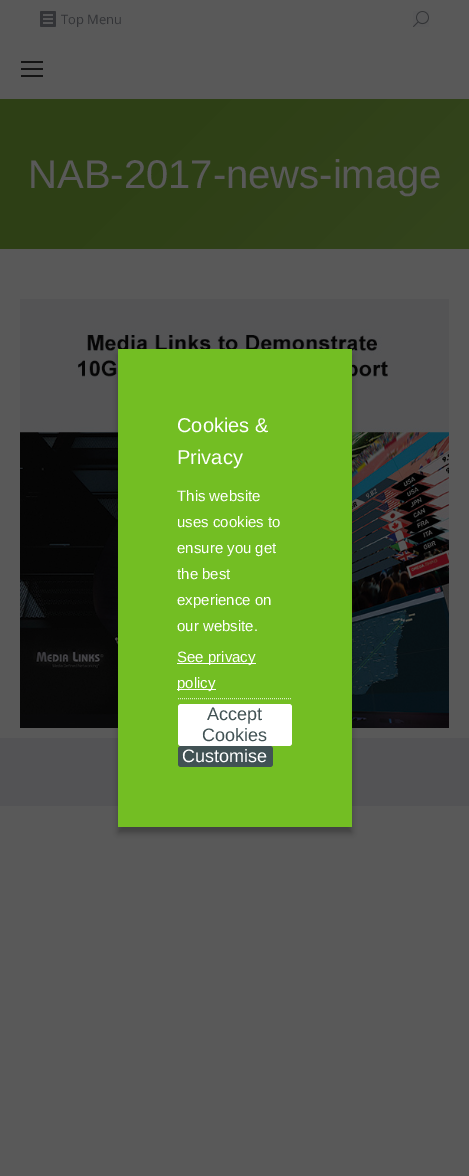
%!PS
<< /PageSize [469 1176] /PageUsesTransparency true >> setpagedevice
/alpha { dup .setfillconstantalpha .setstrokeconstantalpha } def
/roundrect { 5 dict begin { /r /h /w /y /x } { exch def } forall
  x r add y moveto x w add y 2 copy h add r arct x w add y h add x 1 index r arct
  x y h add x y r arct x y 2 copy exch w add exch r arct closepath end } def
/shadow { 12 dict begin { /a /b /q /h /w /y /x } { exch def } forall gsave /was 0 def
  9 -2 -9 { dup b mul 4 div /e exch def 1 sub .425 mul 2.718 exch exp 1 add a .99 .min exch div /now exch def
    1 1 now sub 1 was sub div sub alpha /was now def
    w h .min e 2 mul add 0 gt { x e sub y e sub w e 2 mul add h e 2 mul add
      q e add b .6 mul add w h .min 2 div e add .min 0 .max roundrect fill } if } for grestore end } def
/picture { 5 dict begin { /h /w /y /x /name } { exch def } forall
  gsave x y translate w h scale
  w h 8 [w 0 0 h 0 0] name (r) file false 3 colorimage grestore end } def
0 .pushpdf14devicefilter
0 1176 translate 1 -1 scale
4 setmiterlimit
0.349 setgray
0 0 469 1176 rectfill
(img1.rgb) 40 11 16 16 picture
/OpenSans-Regular [13 0 0 -13 0 0] selectfont
0.196 0.2 0.212 setrgbcolor
61 24 moveto (Top Menu) show
(img2.rgb) 413 11 16 16 picture
0.078 setgray
21 61 22 2 rectfill
21 68 22 2 rectfill
21 75 22 2 rectfill
gsave newpath 0 99 moveto 469 99 lineto 469 249 lineto 0 249 lineto closepath clip newpath
<< /ShadingType 2 /ColorSpace /DeviceRGB /Coords [80 19 389 329] /Extend [true true] /Function << /FunctionType 3 /Domain [0 1] /Functions [<< /FunctionType 2 /Domain [0 1] /C0 [0.176 0.247 0.082] /C1 [0.176 0.247 0.082] /N 1 >> << /FunctionType 2 /Domain [0 1] /C0 [0.176 0.247 0.082] /C1 [0.2 0.267 0.114] /N 1 >>] /Bounds [0.3] /Encode [0 1 0 1] >> >> shfill grestore
/LiberationSans-Regular [40 0 0 -40 0 0] selectfont
0.349 setgray
28 188 moveto (NAB-2017-news-image) show
(img3.rgb) 20 299 429 429 picture
0.325 0.325 0.333 setrgbcolor
0 738 469 68 rectfill
0 setgray
118 355 234 478 0 3 0.25 shadow
0.451 0.745 0.137 setrgbcolor
118 349 234 478 rectfill
/LiberationSans-Regular [20 0 0 -20 0 0] selectfont
1 setgray
177 432 moveto (Cookies &) show
177 464 moveto (Privacy) show
/LiberationSans-Regular [15 0 0 -15 0 0] selectfont
177 501 moveto (This website) show
177 527 moveto (uses cookies to) show
177 553 moveto (ensure you get) show
177 579 moveto (the best) show
177 605 moveto (experience on) show
177 631 moveto (our website.) show
0.863 0.937 0.784 setrgbcolor
[1 1] 0 setdash
newpath 178 698.5 moveto 292 698.5 lineto stroke
1 setgray
177 663 79 1 rectfill
177 662 moveto (See privacy) show
177 689 39 1 rectfill
177 688 moveto (policy) show
178 704 114 42 3 roundrect fill
/LiberationSans-Regular [18 0 0 -18 0 0] selectfont
0.255 0.322 0.329 setrgbcolor
207 720 moveto (Accept) show
202 741 moveto (Cookies) show
178 746 95 21 3 roundrect fill
1 setgray
182 762 moveto (Customise) show
.poppdf14devicefilter showpage
